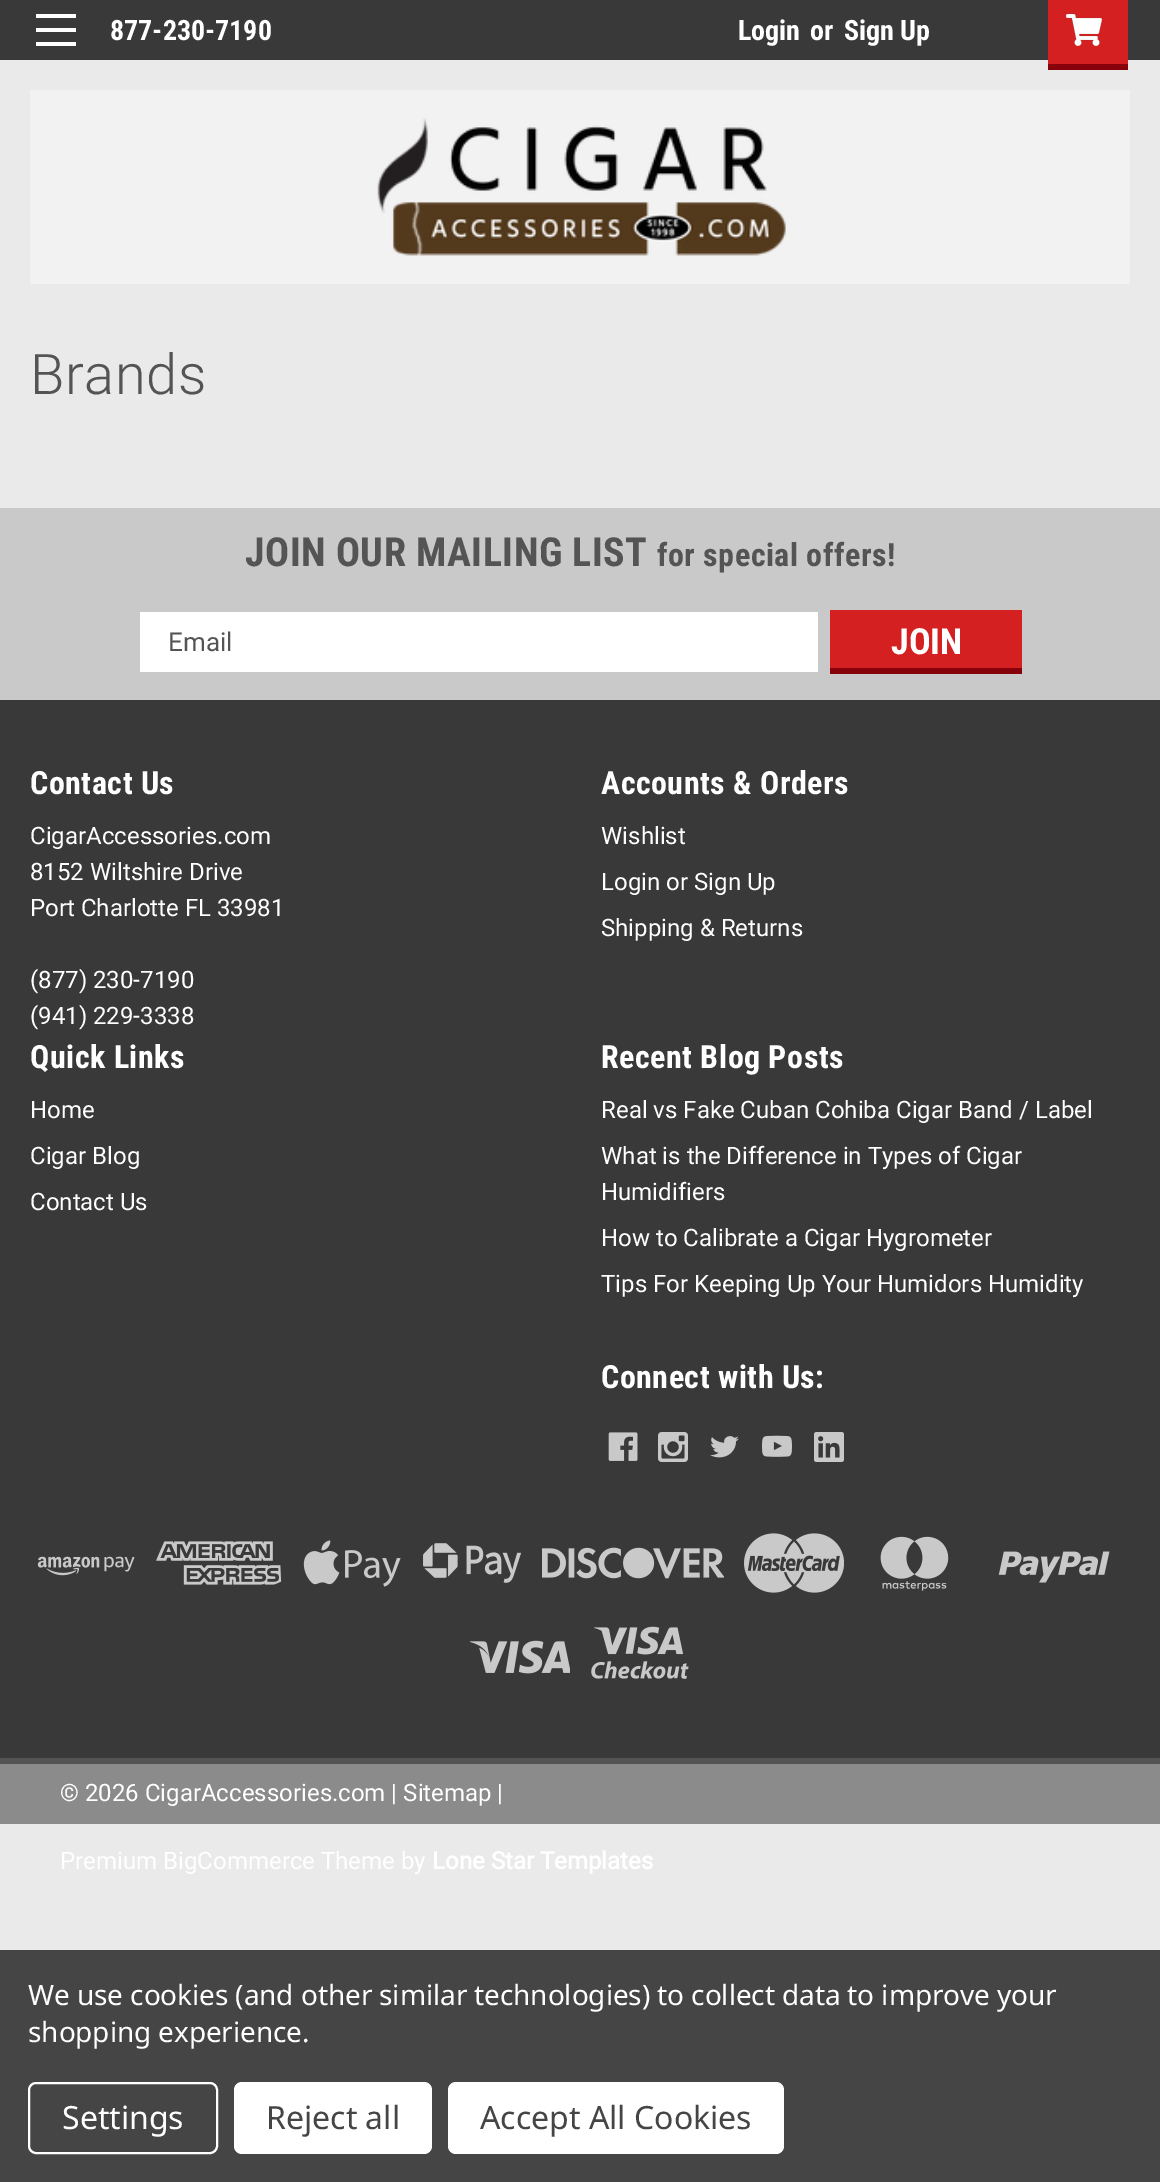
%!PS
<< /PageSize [1160 2182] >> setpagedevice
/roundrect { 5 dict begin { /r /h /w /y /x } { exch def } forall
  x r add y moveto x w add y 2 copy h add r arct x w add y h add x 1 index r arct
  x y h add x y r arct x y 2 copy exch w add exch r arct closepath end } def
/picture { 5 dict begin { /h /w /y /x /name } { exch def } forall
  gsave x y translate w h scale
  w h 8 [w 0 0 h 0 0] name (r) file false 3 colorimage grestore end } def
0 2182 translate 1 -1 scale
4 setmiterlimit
0.918 setgray
0 0 1160 2182 rectfill
0.224 setgray
0 0 1160 60 rectfill
1 setgray
36 28 40 4 rectfill
36 14 40 4 rectfill
36 42 40 4 rectfill
/RobotoCondensed-Bold [28 0 0 -28 0 0] selectfont
110 40 moveto (877-230-7190) show
738 40 moveto (Login) show
810 40 moveto (or) show
844 40 moveto (Sign Up) show
0.831 0.125 0.125 setrgbcolor
1048 0 80 64 rectfill
0.525 0.004 0.035 setrgbcolor
1048 64 80 6 rectfill
(img1.rgb) 1066 13 36 33 picture
0.949 setgray
30 90 1100 194 rectfill
(img2.rgb) 377 118 409 138 picture
/Roboto-Light [56 0 0 -56 0 0] selectfont
0.329 setgray
30 394 moveto 0.5 0 (Brands) ashow
0.224 setgray
0 700 1160 1058 rectfill
0.792 0.788 0.788 setrgbcolor
0 508 1160 192 rectfill
/RobotoCondensed-Bold [40 0 0 -40 0 0] selectfont
0.329 setgray
245 566 moveto 0.5 0 (JOIN OUR MAILING LIST) ashow
/RobotoCondensed-Bold [32 0 0 -32 0 0] selectfont
657 566 moveto 0.5 0 (for special offers!) ashow
1 setgray
140 612 678 60 rectfill
/Roboto-Regular [26 0 0 -26 0 0] selectfont
0.329 setgray
168 651 moveto (Email) show
0.831 0.125 0.125 setrgbcolor
830 610 192 58 rectfill
0.525 0.004 0.035 setrgbcolor
830 668 192 6 rectfill
/RobotoCondensed-Bold [36 0 0 -36 0 0] selectfont
1 setgray
891 654 moveto (JOIN) show
/RobotoCondensed-Bold [32 0 0 -32 0 0] selectfont
30 794 moveto 0.5 0 (Contact Us) ashow
/Roboto-Regular [24 0 0 -24 0 0] selectfont
30 844 moveto (CigarAccessories.com) show
30 880 moveto (8152 Wiltshire Drive) show
30 916 moveto (Port Charlotte FL 33981) show
30 988 moveto (\(877\) 230-7190) show
30 1024 moveto (\(941\) 229-3338) show
/RobotoCondensed-Bold [32 0 0 -32 0 0] selectfont
601 794 moveto 0.5 0 (Accounts & Orders) ashow
/Roboto-Regular [24 0 0 -24 0 0] selectfont
601 844 moveto (Wishlist) show
601 890 moveto (Login or) show
694 890 moveto (Sign Up) show
601 936 moveto (Shipping & Returns) show
/RobotoCondensed-Bold [32 0 0 -32 0 0] selectfont
30 1068 moveto 0.5 0 (Quick Links) ashow
/Roboto-Regular [24 0 0 -24 0 0] selectfont
30 1118 moveto (Home) show
30 1164 moveto (Cigar Blog) show
30 1210 moveto (Contact Us) show
/RobotoCondensed-Bold [32 0 0 -32 0 0] selectfont
601 1068 moveto 0.5 0 (Recent Blog Posts) ashow
/Roboto-Regular [24 0 0 -24 0 0] selectfont
601 1118 moveto (Real vs Fake Cuban Cohiba Cigar Band / Label) show
601 1164 moveto (What is the Difference in Types of Cigar) show
601 1200 moveto (Humidifiers) show
601 1246 moveto (How to Calibrate a Cigar Hygrometer) show
601 1292 moveto (Tips For Keeping Up Your Humidors Humidity) show
/RobotoCondensed-Bold [32 0 0 -32 0 0] selectfont
601 1388 moveto 0.5 0 (Connect with Us:) ashow
(img3.rgb) 608 1432 30 29 picture
(img4.rgb) 658 1432 30 30 picture
(img5.rgb) 710 1436 29 22 picture
(img6.rgb) 762 1435 30 22 picture
(img7.rgb) 814 1432 30 30 picture
(img8.rgb) 37 1556 98 20 picture
(img9.rgb) 156 1541 126 44 picture
(img10.rgb) 303 1540 98 47 picture
(img11.rgb) 423 1543 98 40 picture
(img12.rgb) 542 1547 182 32 picture
(img13.rgb) 744 1533 100 60 picture
(img14.rgb) 880 1536 69 55 picture
(img15.rgb) 998 1551 112 32 picture
(img16.rgb) 470 1640 100 34 picture
(img17.rgb) 591 1626 98 53 picture
0.545 setgray
0 1764 1160 60 rectfill
0.329 setgray
0 1758 1160 6 rectfill
/Roboto-Regular [24 0 0 -24 0 0] selectfont
1 setgray
60 1801 moveto (© 2026 CigarAccessories.com | Sitemap |) show
60 1869 moveto (Premium BigCommerce Theme by) show
/Roboto-Bold [24 0 0 -24 0 0] selectfont
432 1869 moveto (Lone Star Templates) show
0.271 setgray
0 1950 1160 232 rectfill
/NotoSans-Regular [28 0 0 -28 0 0] selectfont
1 setgray
28 2005 moveto -0.1 0 (We use cookies \(and other similar technologies\) to collect data to improve your) ashow
28 2042 moveto -0.1 0 (shopping experience.) ashow
2 setlinewidth
29 2083 188 70 7 roundrect stroke
/NotoSans-Regular [32 0 0 -32 0 0] selectfont
62 2129 moveto (Settings) show
234 2082 198 72 8 roundrect fill
0.271 setgray
266 2129 moveto (Reject all) show
1 setgray
448 2082 336 72 8 roundrect fill
0.271 setgray
480 2129 moveto (Accept All Cookies) show
showpage
